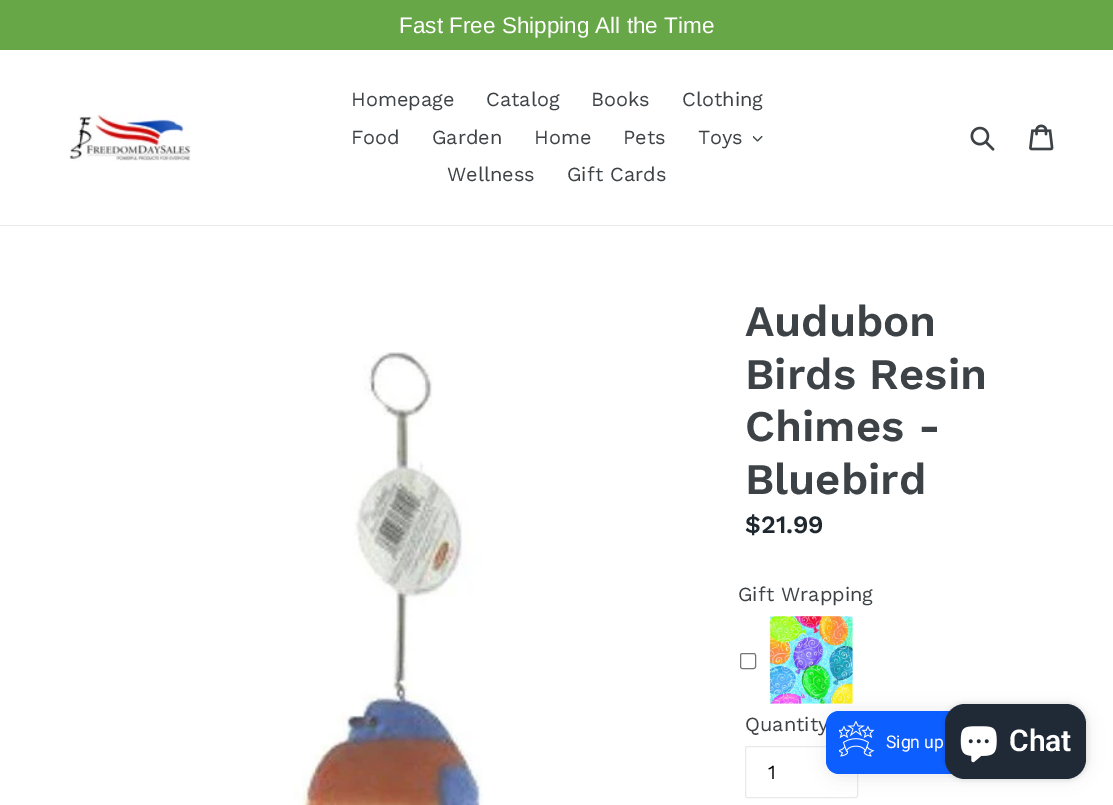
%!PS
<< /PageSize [1113 805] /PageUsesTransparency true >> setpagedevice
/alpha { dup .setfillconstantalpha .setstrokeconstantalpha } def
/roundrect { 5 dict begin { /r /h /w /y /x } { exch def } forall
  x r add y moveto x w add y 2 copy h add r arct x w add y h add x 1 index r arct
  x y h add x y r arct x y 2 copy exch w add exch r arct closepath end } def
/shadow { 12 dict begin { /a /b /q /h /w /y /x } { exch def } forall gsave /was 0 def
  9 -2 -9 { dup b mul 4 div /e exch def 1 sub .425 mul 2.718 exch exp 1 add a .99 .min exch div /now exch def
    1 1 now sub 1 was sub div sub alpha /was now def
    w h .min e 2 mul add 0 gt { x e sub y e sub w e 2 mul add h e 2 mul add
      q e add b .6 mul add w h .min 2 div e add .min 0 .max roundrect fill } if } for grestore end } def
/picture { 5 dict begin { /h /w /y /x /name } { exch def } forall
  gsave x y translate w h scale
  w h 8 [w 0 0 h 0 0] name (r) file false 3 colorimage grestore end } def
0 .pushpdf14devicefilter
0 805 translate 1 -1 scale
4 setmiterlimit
1 setgray
0 0 1113 805 rectfill
0.404 0.655 0.278 setrgbcolor
0 0 1113 50 rectfill
/LiberationSans-Regular [22.5 0 0 -22.5 0 0] selectfont
1 setgray
399 33 moveto (Fast Free Shipping All the Time) show
0.91 0.914 0.922 setrgbcolor
0 225 1113 1 rectfill
(img1.rgb) 69 115 122 46 picture
/WorkSans-Regular [20 0 0 -20 0 0] selectfont
0.239 0.259 0.275 setrgbcolor
351 106 moveto (Homepage) show
486 106 moveto (Catalog) show
591 106 moveto (Books) show
682 106 moveto (Clothing) show
351 144 moveto (Food) show
432 144 moveto (Garden) show
534 144 moveto (Home) show
623 144 moveto (Pets) show
698 144 moveto (Toys) show
(img2.rgb) 753 135 10 7 picture
447 181 moveto (Wellness) show
567 181 moveto (Gift Cards) show
(img3.rgb) 970 126 25 25 picture
(img4.rgb) 1029 124 25 27 picture
(img5.rgb) 293 352 190 453 picture
/WorkSans-SemiBold [43.75 0 0 -43.75 0 0] selectfont
745 336 moveto (Audubon) show
745 389 moveto (Birds Resin) show
745 441 moveto (Chimes -) show
745 494 moveto (Bluebird) show
/WorkSans-SemiBold [25 0 0 -25 0 0] selectfont
0.122 0.157 0.184 setrgbcolor
745 533 moveto ($21.99) show
/WorkSans-Regular [20 0 0 -20 0 0] selectfont
0.239 0.259 0.275 setrgbcolor
738 601 moveto (Gift Wrapping) show
0.463 setgray
740.5 653.5 15 15 2 roundrect stroke
(img6.rgb) 769 616 84 88 picture
0.239 0.259 0.275 setrgbcolor
745 731 moveto (Quantity) show
0.91 0.914 0.922 setrgbcolor
745.5 746.5 112 51 2 roundrect stroke
0 setgray
768 779 moveto (1) show
828 713 256 62 13 9.5 0.1 shadow
0.051 0.369 1 setrgbcolor
826 711 257 63 13 roundrect fill
0 setgray
945 704 141 75 20 3 0.15 shadow
0.125 0.165 0.212 setrgbcolor
945 704 141 75 20 roundrect fill
(img7.rgb) 960 726 37 37 picture
/Roboto-SemiBold [30 0 0 -30 0 0] selectfont
1 setgray
1009 751 moveto (Chat) show
(img8.rgb) 839 721 36 36 picture
/Roboto-Regular [17.5 0 0 -17.5 0 0] selectfont
886 748 moveto (Sign up) show
.poppdf14devicefilter showpage
